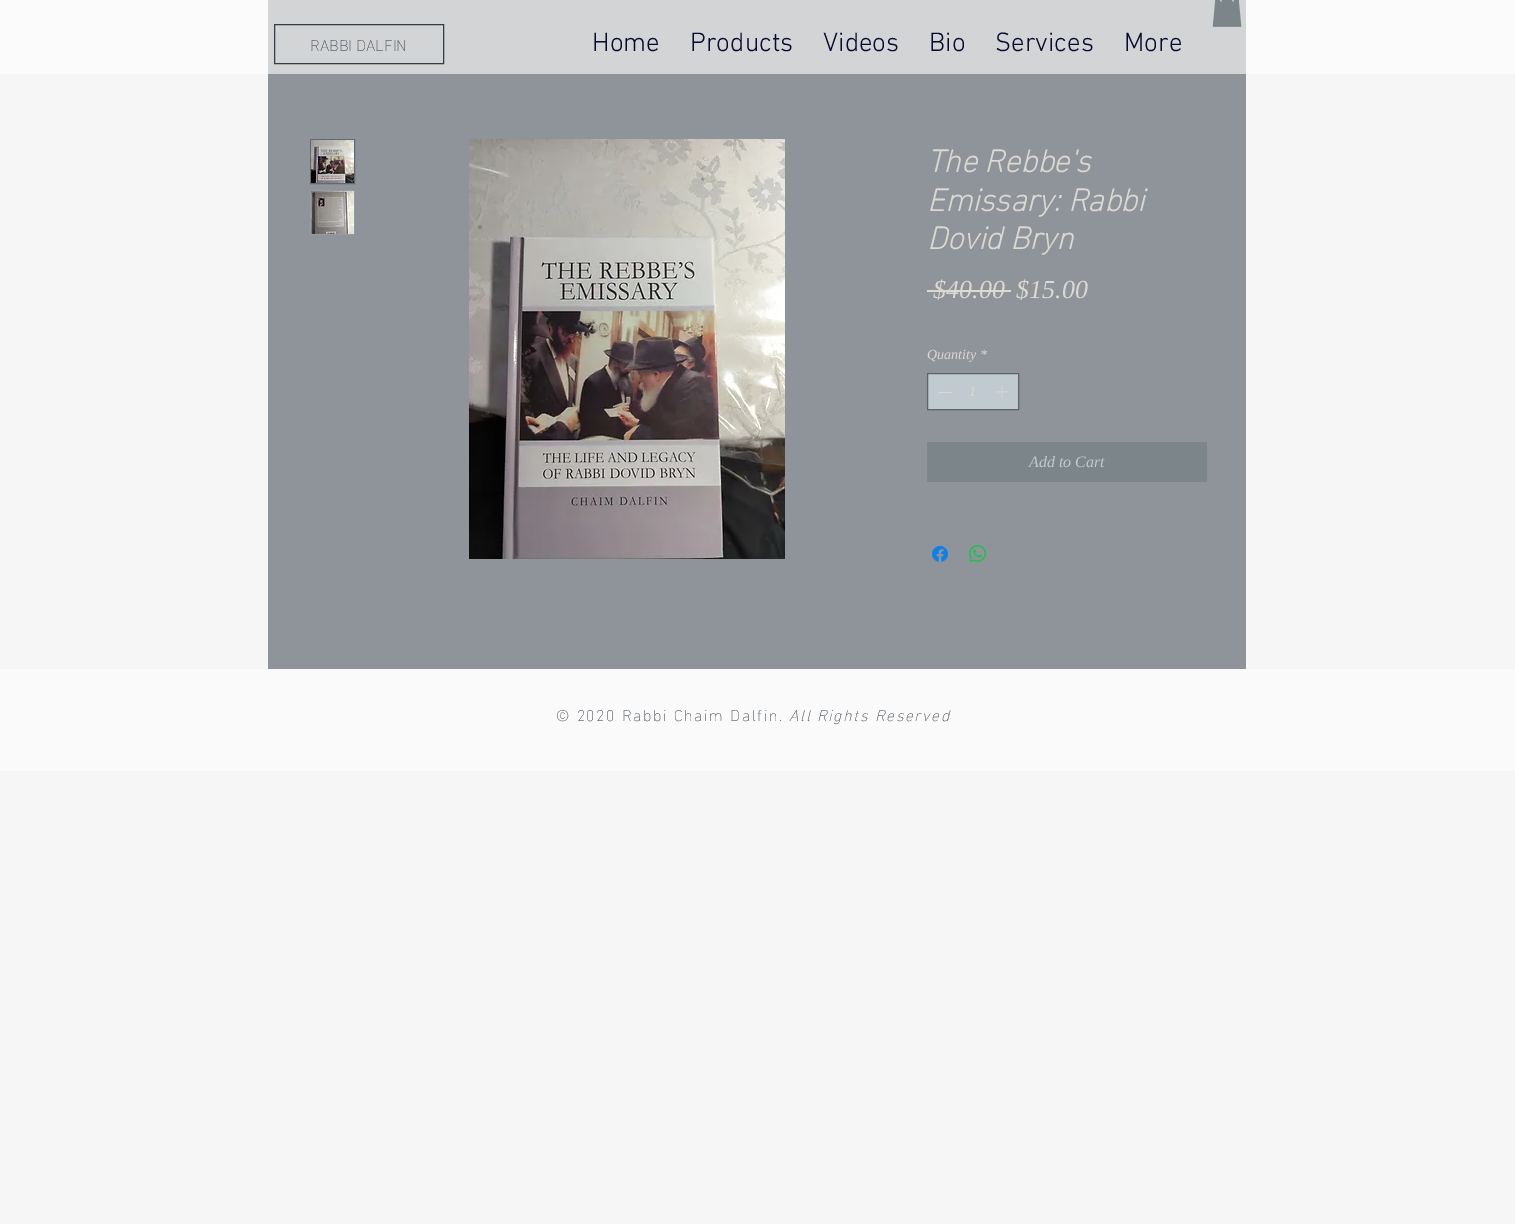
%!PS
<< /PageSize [1515 1224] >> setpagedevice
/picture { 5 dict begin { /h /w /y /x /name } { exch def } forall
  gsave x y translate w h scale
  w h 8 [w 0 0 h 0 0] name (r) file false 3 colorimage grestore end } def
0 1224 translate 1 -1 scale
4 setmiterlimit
0.965 0.965 0.969 setrgbcolor
0 0 1515 1224 rectfill
0.984 0.984 0.988 setrgbcolor
0 0 1515 74 rectfill
0.824 0.831 0.839 setrgbcolor
268 0 978 74 rectfill
(img1.rgb) 1212 0 30 27 picture
0.196 0.239 0.275 setrgbcolor
274.5 24.5 169 39 rectstroke
/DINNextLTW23-ExtraLight [16 0 0 -16 0 0] selectfont
310 51 moveto (RABBI DALFIN) show
/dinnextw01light-Light [27 0 0 -27 0 0] selectfont
0.035 0.035 0.188 setrgbcolor
592 51 moveto (Home) show
690 51 moveto (Products) show
823 51 moveto (Videos) show
929 51 moveto (Bio) show
995 51 moveto (Services) show
1124 51 moveto (More) show
0.557 0.58 0.6 setrgbcolor
268 74 978 595 rectfill
0.376 0.416 0.447 setrgbcolor
310.5 139.5 44 44 rectstroke
(img2.rgb) 311 140 43 43 picture
0.576 0.612 0.639 setrgbcolor
310 190 45 45 rectfill
(img3.rgb) 311 191 43 43 picture
(img4.rgb) 469 139 316 420 picture
/DINNextLTW23-BoldItalic [32 0 0 -32 0 0] selectfont
0.863 0.847 0.824 setrgbcolor
927 172 moveto (The Rebbe's) show
927 211 moveto (Emissary: Rabbi) show
927 249 moveto (Dovid Bryn) show
/LiberationSerif-Italic [26 0 0 -26 0 0] selectfont
933 298 moveto ($40.00) show
927 290 84 2 rectfill
1016 298 moveto ($15.00) show
/LiberationSerif-Italic [14 0 0 -14 0 0] selectfont
927 359 moveto (Quantity) show
980 359 moveto (*) show
0.761 0.792 0.82 setrgbcolor
newpath 927.5 373.5 moveto 1018.5 373.5 lineto 1018.5 409.5 lineto 927.5 409.5 lineto closepath gsave fill grestore
0.365 0.388 0.412 setrgbcolor
stroke
0.863 0.847 0.824 setrgbcolor
939 392 13 1 rectfill
969 396 moveto (1) show
(img5.rgb) 995 385 14 14 picture
0.486 0.522 0.541 setrgbcolor
927 442 280 40 rectfill
/LiberationSerif-Italic [16 0 0 -16 0 0] selectfont
0.761 0.792 0.82 setrgbcolor
1029 467 moveto (Add to Cart) show
(img6.rgb) 932 546 16 16 picture
(img7.rgb) 969 545 17 17 picture
0.98 0.98 0.984 setrgbcolor
0 669 1515 102 rectfill
/DINNextLTW23-ExtraLight [16 0 0 -16 0 0] selectfont
0.196 0.239 0.275 setrgbcolor
556 721 moveto 1.6 0 (© 2020 Rabbi Chaim Dalfin.) ashow
/DINNextLTW23-ExtraLightItalic [16 0 0 -16 0 0] selectfont
789 721 moveto 1.6 0 (All Rights Reserved) ashow
showpage
